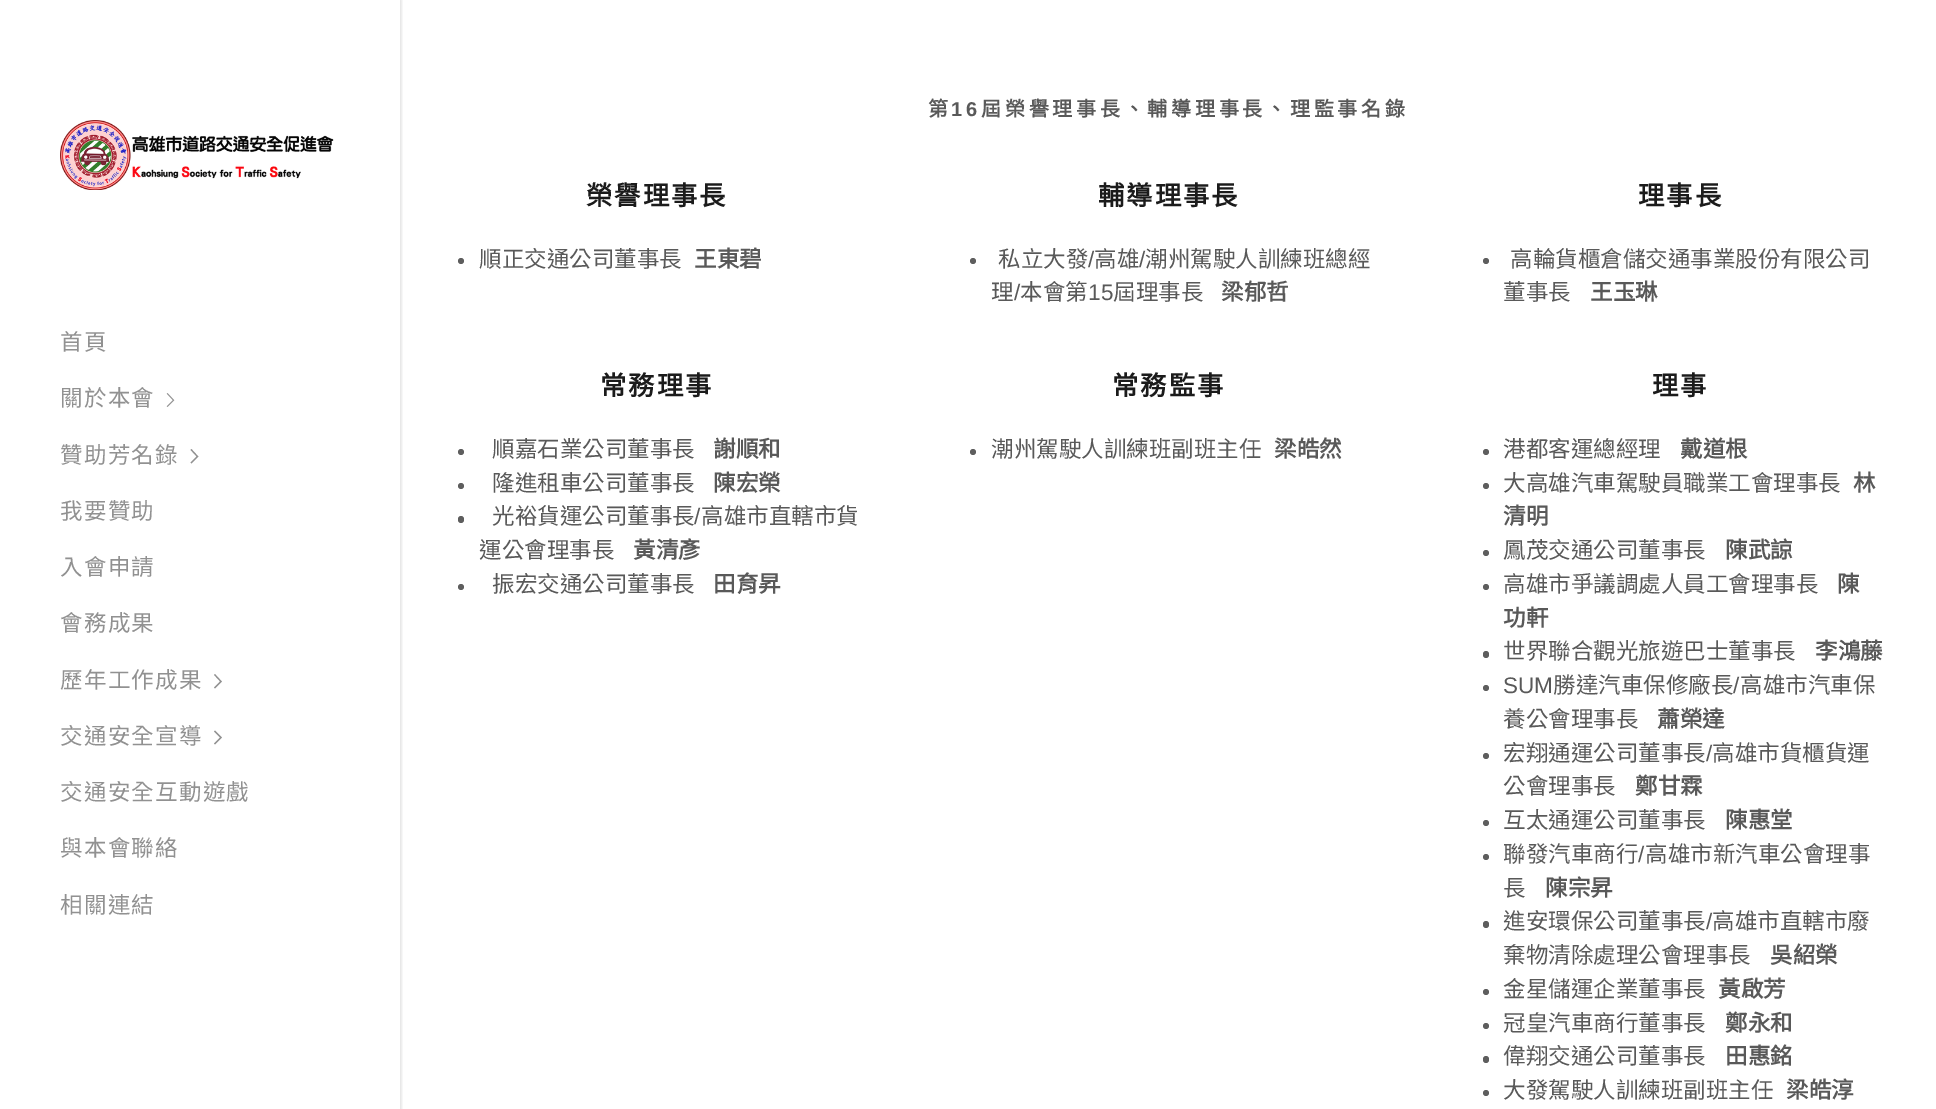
%!PS
<< /PageSize [1936 1109] /PageUsesTransparency true >> setpagedevice
/alpha { dup .setfillconstantalpha .setstrokeconstantalpha } def
/roundrect { 5 dict begin { /r /h /w /y /x } { exch def } forall
  x r add y moveto x w add y 2 copy h add r arct x w add y h add x 1 index r arct
  x y h add x y r arct x y 2 copy exch w add exch r arct closepath end } def
/shadow { 12 dict begin { /a /b /q /h /w /y /x } { exch def } forall gsave /was 0 def
  9 -2 -9 { dup b mul 4 div /e exch def 1 sub .425 mul 2.718 exch exp 1 add a .99 .min exch div /now exch def
    1 1 now sub 1 was sub div sub alpha /was now def
    w h .min e 2 mul add 0 gt { x e sub y e sub w e 2 mul add h e 2 mul add
      q e add b .6 mul add w h .min 2 div e add .min 0 .max roundrect fill } if } for grestore end } def
/picture { 5 dict begin { /h /w /y /x /name } { exch def } forall
  gsave x y translate w h scale
  w h 8 [w 0 0 h 0 0] name (r) file false 3 colorimage grestore end } def
0 .pushpdf14devicefilter
0 1109 translate 1 -1 scale
4 setmiterlimit
1 setgray
0 0 1936 1109 rectfill
gsave
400 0 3 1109 rectclip
0 setgray
0 0 400 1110 0 2.5 0.2 shadow
grestore
(img1.rgb) 60 120 274 70 picture
/NotoSansCJKTC-Regular [22.5 0 0 -22.5 0 0] selectfont
0.569 setgray
60 350 moveto 1.25 0 (首頁) ashow
60 406 moveto 1.25 0 (關於本會) ashow
(img2.rgb) 166 393 9 14 picture
60 463 moveto 1.25 0 (贊助芳名錄) ashow
1.2 setlinewidth
2 setlinecap
newpath 197.5 456.5 moveto 197.5 456 lineto closepath 197.5 456.5 moveto 191 449.5 lineto 197.5 456.5 lineto 191 463 lineto closepath stroke
60 519 moveto 1.25 0 (我要贊助) ashow
60 575 moveto 1.25 0 (入會申請) ashow
60 631 moveto 1.25 0 (會務成果) ashow
60 688 moveto 1.25 0 (歷年工作成果) ashow
newpath 221 681.5 moveto 221 681 lineto closepath 221 681.5 moveto 214.5 674.5 lineto 221 681.5 lineto 214.5 688 lineto closepath stroke
60 744 moveto 1.25 0 (交通安全宣導) ashow
newpath 221 737.5 moveto 221 738 lineto closepath 221 737.5 moveto 214.5 731 lineto 221 737.5 lineto 214.5 744 lineto closepath stroke
60 800 moveto 1.25 0 (交通安全互動遊戲) ashow
60 856 moveto 1.25 0 (與本會聯絡) ashow
60 913 moveto 1.25 0 (相關連結) ashow
/NotoSansCJKTC-Bold [20 0 0 -20 0 0] selectfont
0.349 setgray
928 116 moveto 3.75 0 (第) ashow
/LiberationSans-Bold [20 0 0 -20 0 0] selectfont
951 116 moveto 3.75 0 (16) ashow
/NotoSansCJKTC-Bold [20 0 0 -20 0 0] selectfont
981 116 moveto 3.75 0 (屆榮譽理事長、輔導理事長、理監事名錄) ashow
/NotoSansCJKTC-Bold [26.25 0 0 -26.25 0 0] selectfont
0.106 setgray
586 205 moveto 2 0 (榮譽理事長) ashow
0.369 setgray
newpath 461 261 3 0 360 arc closepath fill
/NotoSansCJKTC-Regular [22.5 0 0 -22.5 0 0] selectfont
0.349 setgray
479 267 moveto (順正交通公司董事長) show
/NotoSansCJKTC-Bold [22.5 0 0 -22.5 0 0] selectfont
694 267 moveto (王東碧) show
/NotoSansCJKTC-Bold [26.25 0 0 -26.25 0 0] selectfont
0.106 setgray
1098 205 moveto 2 0 (輔導理事長) ashow
0.369 setgray
newpath 973 261 3 0 360 arc closepath fill
/NotoSansCJKTC-Regular [22.5 0 0 -22.5 0 0] selectfont
0.349 setgray
998 267 moveto (私立大發) show
/LiberationSans-Regular [22.5 0 0 -22.5 0 0] selectfont
1088 267 moveto (/) show
/NotoSansCJKTC-Regular [22.5 0 0 -22.5 0 0] selectfont
1094 267 moveto (高雄) show
/LiberationSans-Regular [22.5 0 0 -22.5 0 0] selectfont
1139 267 moveto (/) show
/NotoSansCJKTC-Regular [22.5 0 0 -22.5 0 0] selectfont
1145 267 moveto (潮州駕駛人訓練班總經) show
991 300 moveto (理) show
/LiberationSans-Regular [22.5 0 0 -22.5 0 0] selectfont
1014 300 moveto (/) show
/NotoSansCJKTC-Regular [22.5 0 0 -22.5 0 0] selectfont
1020 300 moveto (本會第) show
/LiberationSans-Regular [22.5 0 0 -22.5 0 0] selectfont
1088 300 moveto (15) show
/NotoSansCJKTC-Regular [22.5 0 0 -22.5 0 0] selectfont
1113 300 moveto (屆理事長) show
/NotoSansCJKTC-Bold [22.5 0 0 -22.5 0 0] selectfont
1221 300 moveto (梁郁哲) show
/NotoSansCJKTC-Bold [26.25 0 0 -26.25 0 0] selectfont
0.106 setgray
1638 205 moveto 2 0 (理事長) ashow
0.369 setgray
newpath 1486 261 3 0 360 arc closepath fill
/NotoSansCJKTC-Regular [22.5 0 0 -22.5 0 0] selectfont
0.349 setgray
1510 267 moveto (高輪貨櫃倉儲交通事業股份有限公司) show
1503 300 moveto (董事長) show
/NotoSansCJKTC-Bold [22.5 0 0 -22.5 0 0] selectfont
1590 300 moveto (王玉琳) show
/NotoSansCJKTC-Bold [26.25 0 0 -26.25 0 0] selectfont
0.106 setgray
600 395 moveto 2 0 (常務理事) ashow
0.369 setgray
newpath 461 452 3 0 360 arc closepath fill
/NotoSansCJKTC-Regular [22.5 0 0 -22.5 0 0] selectfont
0.349 setgray
492 457 moveto (順嘉石業公司董事長) show
/NotoSansCJKTC-Bold [22.5 0 0 -22.5 0 0] selectfont
713 457 moveto (謝順和) show
0.369 setgray
newpath 461 486 3 0 360 arc closepath fill
/NotoSansCJKTC-Regular [22.5 0 0 -22.5 0 0] selectfont
0.349 setgray
492 491 moveto (隆進租車公司董事長) show
/NotoSansCJKTC-Bold [22.5 0 0 -22.5 0 0] selectfont
713 491 moveto (陳宏榮) show
0.369 setgray
458 516 6 7 3 roundrect fill
/NotoSansCJKTC-Regular [22.5 0 0 -22.5 0 0] selectfont
0.349 setgray
492 524 moveto (光裕貨運公司董事長) show
/LiberationSans-Regular [22.5 0 0 -22.5 0 0] selectfont
694 524 moveto (/) show
/NotoSansCJKTC-Regular [22.5 0 0 -22.5 0 0] selectfont
701 524 moveto (高雄市直轄市貨) show
479 558 moveto (運公會理事長) show
/NotoSansCJKTC-Bold [22.5 0 0 -22.5 0 0] selectfont
633 558 moveto (黃清彥) show
0.369 setgray
newpath 461 587 3 0 360 arc closepath fill
/NotoSansCJKTC-Regular [22.5 0 0 -22.5 0 0] selectfont
0.349 setgray
492 592 moveto (振宏交通公司董事長) show
/NotoSansCJKTC-Bold [22.5 0 0 -22.5 0 0] selectfont
713 592 moveto (田育昇) show
/NotoSansCJKTC-Bold [26.25 0 0 -26.25 0 0] selectfont
0.106 setgray
1112 395 moveto 2 0 (常務監事) ashow
0.369 setgray
newpath 973 452 3 0 360 arc closepath fill
/NotoSansCJKTC-Regular [22.5 0 0 -22.5 0 0] selectfont
0.349 setgray
991 457 moveto (潮州駕駛人訓練班副班主任) show
/NotoSansCJKTC-Bold [22.5 0 0 -22.5 0 0] selectfont
1274 457 moveto (梁皓然) show
/NotoSansCJKTC-Bold [26.25 0 0 -26.25 0 0] selectfont
0.106 setgray
1652 395 moveto 2 0 (理事) ashow
0.369 setgray
newpath 1486 452 3 0 360 arc closepath fill
/NotoSansCJKTC-Regular [22.5 0 0 -22.5 0 0] selectfont
0.349 setgray
1503 457 moveto (港都客運總經理) show
/NotoSansCJKTC-Bold [22.5 0 0 -22.5 0 0] selectfont
1680 457 moveto (戴道根) show
0.369 setgray
newpath 1486 486 3 0 360 arc closepath fill
/NotoSansCJKTC-Regular [22.5 0 0 -22.5 0 0] selectfont
0.349 setgray
1503 491 moveto (大高雄汽車駕駛員職業工會理事長) show
/NotoSansCJKTC-Bold [22.5 0 0 -22.5 0 0] selectfont
1853 491 moveto (林) show
1503 524 moveto (清明) show
0.369 setgray
newpath 1486 553 3 0 360 arc closepath fill
/NotoSansCJKTC-Regular [22.5 0 0 -22.5 0 0] selectfont
0.349 setgray
1503 558 moveto (鳳茂交通公司董事長) show
/NotoSansCJKTC-Bold [22.5 0 0 -22.5 0 0] selectfont
1725 558 moveto (陳武諒) show
0.369 setgray
newpath 1486 587 3 0 360 arc closepath fill
/NotoSansCJKTC-Regular [22.5 0 0 -22.5 0 0] selectfont
0.349 setgray
1503 592 moveto (高雄市爭議調處人員工會理事長) show
/NotoSansCJKTC-Bold [22.5 0 0 -22.5 0 0] selectfont
1837 592 moveto (陳) show
1503 626 moveto (功軒) show
0.369 setgray
1483 651 6 7 3 roundrect fill
/NotoSansCJKTC-Regular [22.5 0 0 -22.5 0 0] selectfont
0.349 setgray
1503 659 moveto (世界聯合觀光旅遊巴士董事長) show
/NotoSansCJKTC-Bold [22.5 0 0 -22.5 0 0] selectfont
1815 659 moveto (李鴻藤) show
0.369 setgray
newpath 1486 688 3 0 360 arc closepath fill
/LiberationSans-Regular [22.5 0 0 -22.5 0 0] selectfont
0.349 setgray
1503 693 moveto (SUM) show
/NotoSansCJKTC-Regular [22.5 0 0 -22.5 0 0] selectfont
1553 693 moveto (勝達汽車保修廠長) show
/LiberationSans-Regular [22.5 0 0 -22.5 0 0] selectfont
1733 693 moveto (/) show
/NotoSansCJKTC-Regular [22.5 0 0 -22.5 0 0] selectfont
1740 693 moveto (高雄市汽車保) show
1503 727 moveto (養公會理事長) show
/NotoSansCJKTC-Bold [22.5 0 0 -22.5 0 0] selectfont
1657 727 moveto (蕭榮達) show
0.369 setgray
newpath 1486 756 3 0 360 arc closepath fill
/NotoSansCJKTC-Regular [22.5 0 0 -22.5 0 0] selectfont
0.349 setgray
1503 761 moveto (宏翔通運公司董事長) show
/LiberationSans-Regular [22.5 0 0 -22.5 0 0] selectfont
1706 761 moveto (/) show
/NotoSansCJKTC-Regular [22.5 0 0 -22.5 0 0] selectfont
1712 761 moveto (高雄市貨櫃貨運) show
1503 794 moveto (公會理事長) show
/NotoSansCJKTC-Bold [22.5 0 0 -22.5 0 0] selectfont
1635 794 moveto (鄭甘霖) show
0.369 setgray
newpath 1486 823 3 0 360 arc closepath fill
/NotoSansCJKTC-Regular [22.5 0 0 -22.5 0 0] selectfont
0.349 setgray
1503 828 moveto (互太通運公司董事長) show
/NotoSansCJKTC-Bold [22.5 0 0 -22.5 0 0] selectfont
1725 828 moveto (陳惠堂) show
0.369 setgray
newpath 1486 857 3 0 360 arc closepath fill
/NotoSansCJKTC-Regular [22.5 0 0 -22.5 0 0] selectfont
0.349 setgray
1503 862 moveto (聯發汽車商行) show
/LiberationSans-Regular [22.5 0 0 -22.5 0 0] selectfont
1638 862 moveto (/) show
/NotoSansCJKTC-Regular [22.5 0 0 -22.5 0 0] selectfont
1645 862 moveto (高雄市新汽車公會理事) show
1503 896 moveto (長) show
/NotoSansCJKTC-Bold [22.5 0 0 -22.5 0 0] selectfont
1545 896 moveto (陳宗昇) show
0.369 setgray
1483 921 6 7 3 roundrect fill
/NotoSansCJKTC-Regular [22.5 0 0 -22.5 0 0] selectfont
0.349 setgray
1503 929 moveto (進安環保公司董事長) show
/LiberationSans-Regular [22.5 0 0 -22.5 0 0] selectfont
1706 929 moveto (/) show
/NotoSansCJKTC-Regular [22.5 0 0 -22.5 0 0] selectfont
1712 929 moveto (高雄市直轄市廢) show
1503 963 moveto (棄物清除處理公會理事長) show
/NotoSansCJKTC-Bold [22.5 0 0 -22.5 0 0] selectfont
1770 963 moveto (吳紹榮) show
0.369 setgray
newpath 1486 992 3 0 360 arc closepath fill
/NotoSansCJKTC-Regular [22.5 0 0 -22.5 0 0] selectfont
0.349 setgray
1503 997 moveto (金星儲運企業董事長) show
/NotoSansCJKTC-Bold [22.5 0 0 -22.5 0 0] selectfont
1718 997 moveto (黃啟芳) show
0.369 setgray
newpath 1486 1026 3 0 360 arc closepath fill
/NotoSansCJKTC-Regular [22.5 0 0 -22.5 0 0] selectfont
0.349 setgray
1503 1031 moveto (冠皇汽車商行董事長) show
/NotoSansCJKTC-Bold [22.5 0 0 -22.5 0 0] selectfont
1725 1031 moveto (鄭永和) show
0.369 setgray
1483 1056 6 7 3 roundrect fill
/NotoSansCJKTC-Regular [22.5 0 0 -22.5 0 0] selectfont
0.349 setgray
1503 1064 moveto (偉翔交通公司董事長) show
/NotoSansCJKTC-Bold [22.5 0 0 -22.5 0 0] selectfont
1725 1064 moveto (田惠銘) show
0.369 setgray
newpath 1486 1093 3 0 360 arc closepath fill
/NotoSansCJKTC-Regular [22.5 0 0 -22.5 0 0] selectfont
0.349 setgray
1503 1098 moveto (大發駕駛人訓練班副班主任) show
/NotoSansCJKTC-Bold [22.5 0 0 -22.5 0 0] selectfont
1786 1098 moveto (梁皓淳) show
.poppdf14devicefilter showpage
